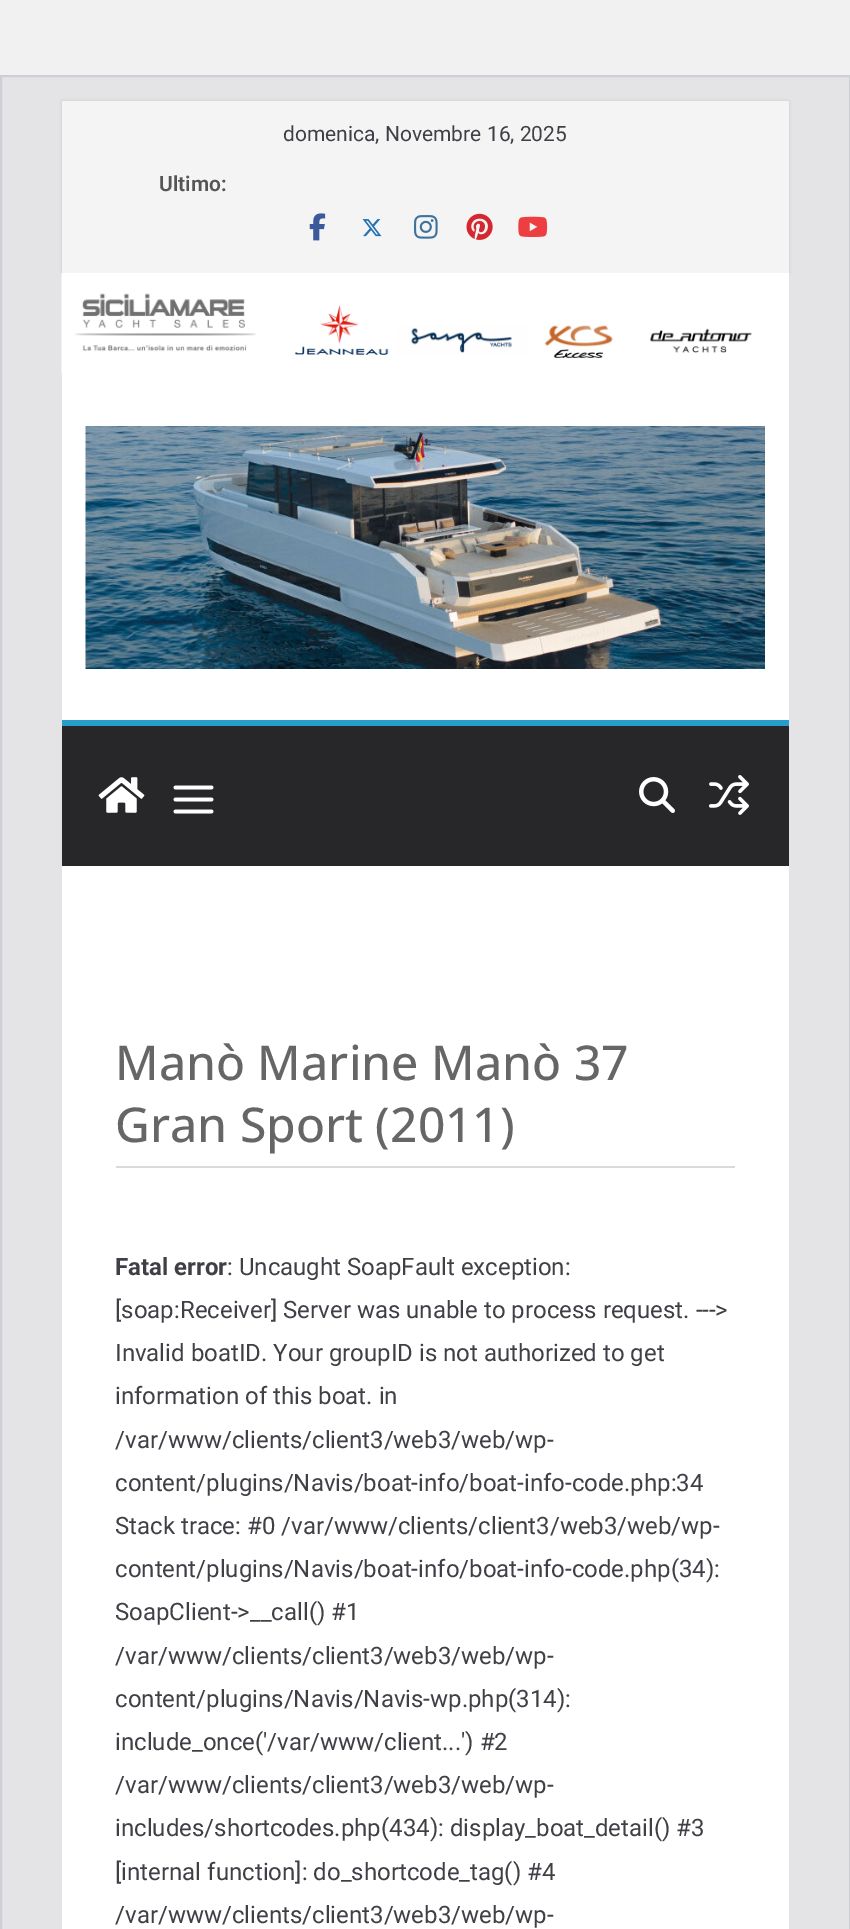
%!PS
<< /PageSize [850 1929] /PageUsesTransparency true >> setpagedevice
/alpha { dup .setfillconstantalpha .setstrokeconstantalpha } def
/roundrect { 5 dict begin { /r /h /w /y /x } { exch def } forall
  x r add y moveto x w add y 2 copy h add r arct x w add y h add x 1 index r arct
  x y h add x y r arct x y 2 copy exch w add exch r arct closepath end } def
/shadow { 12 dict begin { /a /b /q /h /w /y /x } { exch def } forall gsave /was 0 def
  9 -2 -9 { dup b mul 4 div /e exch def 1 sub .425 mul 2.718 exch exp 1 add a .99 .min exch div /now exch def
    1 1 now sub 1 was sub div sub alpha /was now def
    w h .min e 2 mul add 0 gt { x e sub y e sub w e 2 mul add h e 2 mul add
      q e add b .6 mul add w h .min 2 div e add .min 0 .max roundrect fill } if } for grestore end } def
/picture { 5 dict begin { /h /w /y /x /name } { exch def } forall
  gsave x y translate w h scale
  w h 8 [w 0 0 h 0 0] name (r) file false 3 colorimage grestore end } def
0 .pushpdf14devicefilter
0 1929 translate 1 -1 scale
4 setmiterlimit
0.945 setgray
0 0 850 1929 rectfill
0.894 0.894 0.906 setrgbcolor
newpath 1 76 moveto 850 76 lineto 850 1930 lineto 1 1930 lineto closepath gsave fill grestore
0.8 0.816 0.831 setrgbcolor
2 setlinewidth
stroke
1 setgray
62 362 727 358 rectfill
0 setgray
62 101 727 172 0 1.5 0.1 shadow
0.957 0.957 0.961 setrgbcolor
62 101 727 172 rectfill
/Roboto-Regular [21 0 0 -21 0 0] selectfont
0.247 0.247 0.275 setrgbcolor
283 141 moveto (domenica, Novembre 16, 2025) show
/Roboto-SemiBold [21 0 0 -21 0 0] selectfont
0.333 setgray
159 191 moveto (Ultimo:) show
(img1.rgb) 309 213 17 28 picture
(img2.rgb) 362 219 20 18 picture
(img3.rgb) 414 215 24 24 picture
(img4.rgb) 466 213 27 27 picture
(img5.rgb) 518 216 30 21 picture
(img6.rgb) 61 273 728 101 picture
(img7.rgb) 85 426 680 243 picture
0.153 0.153 0.165 setrgbcolor
62 726 727 140 rectfill
0.157 0.616 0.8 setrgbcolor
62 720 727 6 rectfill
(img8.rgb) 98 777 47 36 picture
(img9.rgb) 173 785 41 29 picture
(img10.rgb) 639 777 36 36 picture
(img11.rgb) 709 775 40 40 picture
1 setgray
62 866 727 1063 rectfill
0.855 setgray
116 1166 619 2 rectfill
/OpenSans-Medium [48 0 0 -48 0 0] selectfont
0.4 setgray
115 1080 moveto (Manò Marine Manò 37) show
115 1142 moveto (Gran Sport \(2011\)) show
/Roboto-Bold [24 0 0 -24 0 0] selectfont
0.247 0.247 0.275 setrgbcolor
115 1275 moveto (Fatal error) show
/Roboto-Regular [24 0 0 -24 0 0] selectfont
227 1275 moveto (: Uncaught SoapFault exception:) show
115 1318 moveto ([soap:Receiver] Server was unable to process request. --->) show
115 1361 moveto (Invalid boatID. Your groupID is not authorized to get) show
115 1404 moveto (information of this boat. in) show
115 1448 moveto (/var/www/clients/client3/web3/web/wp-) show
115 1491 moveto (content/plugins/Navis/boat-info/boat-info-code.php:34) show
115 1534 moveto (Stack trace: #0 /var/www/clients/client3/web3/web/wp-) show
115 1577 moveto (content/plugins/Navis/boat-info/boat-info-code.php\(34\):) show
115 1620 moveto (SoapClient->__call\(\) #1) show
115 1664 moveto (/var/www/clients/client3/web3/web/wp-) show
115 1707 moveto (content/plugins/Navis/Navis-wp.php\(314\):) show
115 1750 moveto (include_once\('/var/www/client...'\) #2) show
115 1793 moveto (/var/www/clients/client3/web3/web/wp-) show
115 1836 moveto (includes/shortcodes.php\(434\): display_boat_detail\(\) #3) show
115 1880 moveto ([internal function]: do_shortcode_tag\(\) #4) show
115 1923 moveto (/var/www/clients/client3/web3/web/wp-) show
.poppdf14devicefilter showpage
